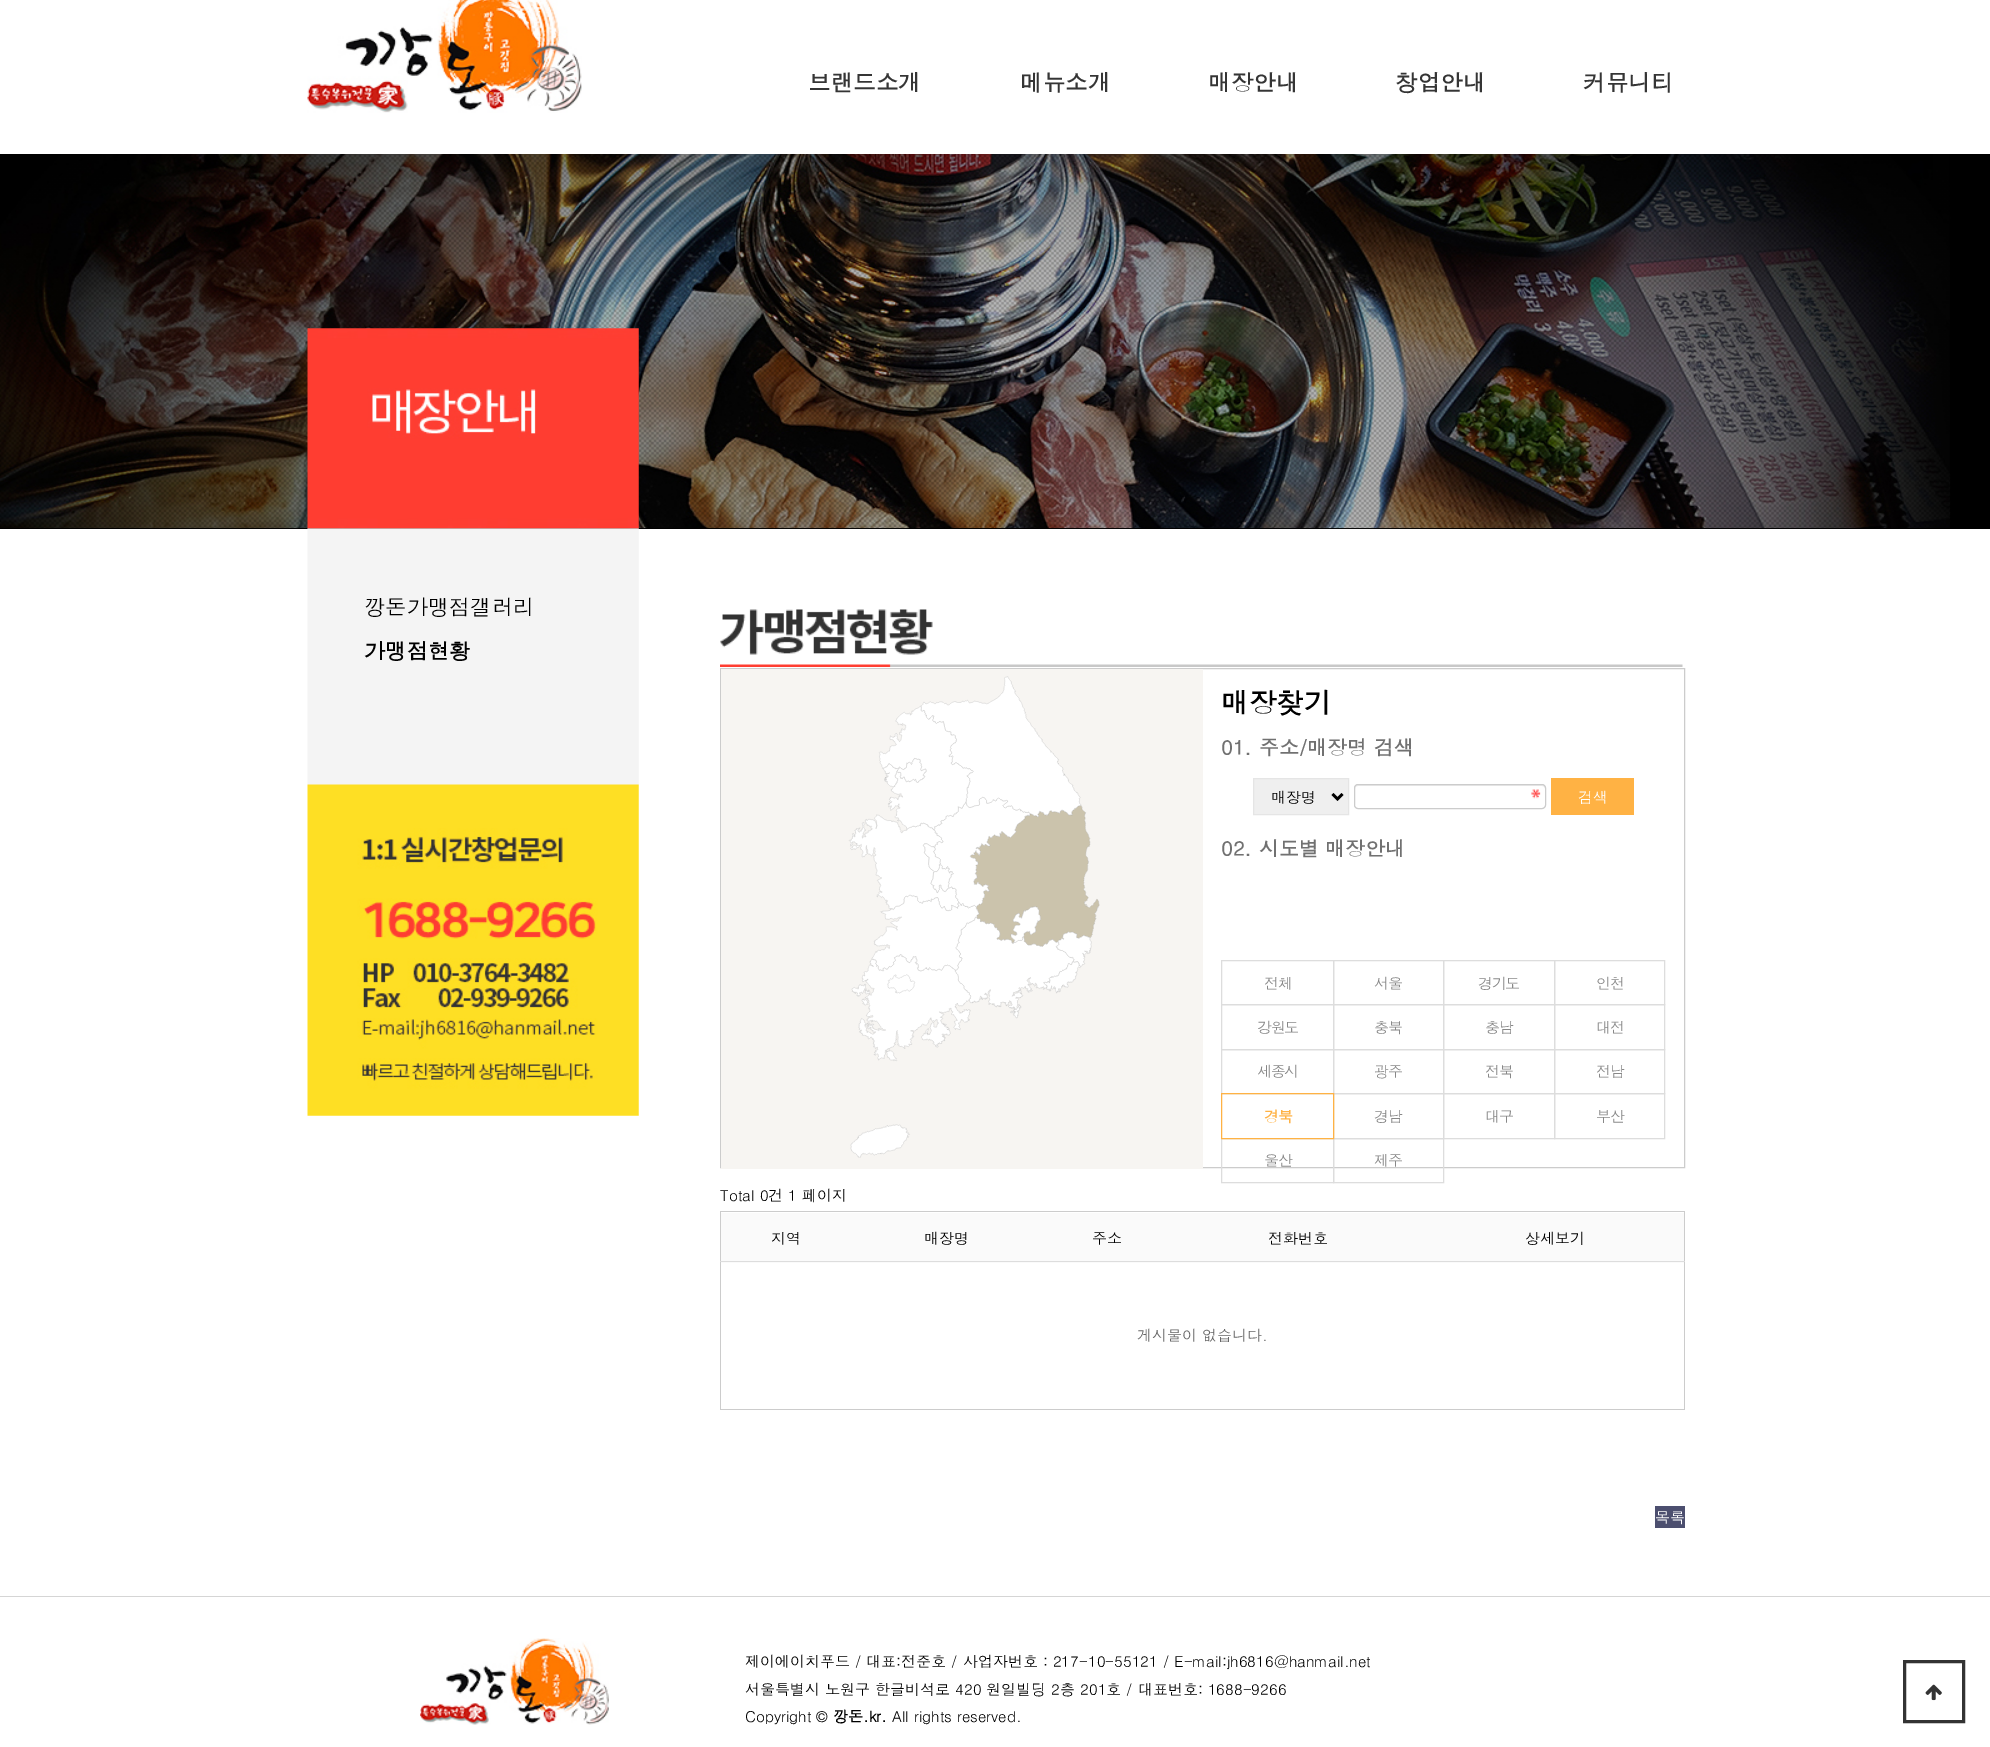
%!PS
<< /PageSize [1990 1747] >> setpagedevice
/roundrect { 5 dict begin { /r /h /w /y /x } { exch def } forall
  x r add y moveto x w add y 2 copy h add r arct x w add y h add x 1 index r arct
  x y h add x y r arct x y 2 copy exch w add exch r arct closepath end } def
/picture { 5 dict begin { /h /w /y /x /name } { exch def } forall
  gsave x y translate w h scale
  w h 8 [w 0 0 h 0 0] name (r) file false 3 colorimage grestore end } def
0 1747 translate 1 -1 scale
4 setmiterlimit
1 setgray
0 0 1990 1747 rectfill
(img1.rgb) 307 0 275 113 picture
/Dotum-Bold [22.5 0 0 -22.5 0 0] selectfont
0.208 setgray
808 91 moveto (브랜드소개) show
1020 91 moveto (메뉴소개) show
1208 91 moveto (매장안내) show
1395 91 moveto (창업안내) show
1583 91 moveto (커뮤니티) show
0 setgray
0 528 1990 1 rectfill
(img2.rgb) 0 154 1990 375 picture
(img4.rgb) 307 528 332 588 picture
(img3.rgb) 307 328 332 201 picture
/Dotum-Regular [21.25 0 0 -21.25 0 0] selectfont
364 615 moveto (깡돈가맹점갤러리) show
/Dotum-Bold [21.25 0 0 -21.25 0 0] selectfont
364 659 moveto (가맹점현황) show
(img5.rgb) 720 609 963 58 picture
0.8 setgray
720.5 668.5 964 499 rectstroke
0.969 0.961 0.949 setrgbcolor
721 669 482 500 rectfill
(img6.rgb) 848 676 252 482 picture
/Dotum-Bold [27.5 0 0 -27.5 0 0] selectfont
0 setgray
1221 713 moveto (매장찾기) show
/Dotum-Bold [20 0 0 -20 0 0] selectfont
0.443 setgray
1221 755 moveto (01. 주소/매장명 검색) show
0.937 setgray
newpath 1253.5 778.5 moveto 1348.5 778.5 lineto 1348.5 814.5 lineto 1253.5 814.5 lineto closepath gsave fill grestore
0.898 setgray
stroke
0 setgray
2.5 setlinewidth
newpath 1332.5 794 moveto 1337.5 799 lineto 1342.5 794 lineto stroke
/Dotum-Regular [15 0 0 -15 0 0] selectfont
1271 803 moveto (매장명) show
(img7.rgb) 1531 789 10 10 picture
0.925 setgray
newpath 1358 786 moveto 1542 786 lineto 1544 786 1545 787 1545 789 curveto 1545 787 1545 785 1542 785 curveto 1358 785 lineto 1355 785 1355 787 1355 789 curveto 1355 787 1356 786 1358 786 curveto closepath fill
0.8 setgray
1 setlinewidth
1354.5 784.5 191 24 3.5 roundrect stroke
1 0.698 0.267 setrgbcolor
1551 778 83 37 rectfill
1 setgray
1578 803 moveto (검색) show
/Dotum-Bold [20 0 0 -20 0 0] selectfont
0.443 setgray
1221 856 moveto (02. 시도별 매장안내) show
0.867 setgray
1221.5 960.5 112 44 rectstroke
/Dotum-Regular [15 0 0 -15 0 0] selectfont
0.533 setgray
1264 989 moveto -1.5 0 (전체) ashow
0.867 setgray
1333.5 960.5 110 44 rectstroke
0.533 setgray
1374 989 moveto -1.5 0 (서울) ashow
0.867 setgray
1443.5 960.5 111 44 rectstroke
0.533 setgray
1478 989 moveto -1.5 0 (경기도) ashow
0.867 setgray
1554.5 960.5 110 44 rectstroke
0.533 setgray
1596 989 moveto -1.5 0 (인천) ashow
0.867 setgray
1221.5 1004.5 112 45 rectstroke
0.533 setgray
1257 1033 moveto -1.5 0 (강원도) ashow
0.867 setgray
1333.5 1004.5 110 45 rectstroke
0.533 setgray
1374 1033 moveto -1.5 0 (충북) ashow
0.867 setgray
1443.5 1004.5 111 45 rectstroke
0.533 setgray
1485 1033 moveto -1.5 0 (충남) ashow
0.867 setgray
1554.5 1004.5 110 45 rectstroke
0.533 setgray
1596 1033 moveto -1.5 0 (대전) ashow
0.867 setgray
1221.5 1049.5 112 44 rectstroke
0.533 setgray
1257 1077 moveto -1.5 0 (세종시) ashow
0.867 setgray
1333.5 1049.5 110 44 rectstroke
0.533 setgray
1374 1077 moveto -1.5 0 (광주) ashow
0.867 setgray
1443.5 1049.5 111 44 rectstroke
0.533 setgray
1485 1077 moveto -1.5 0 (전북) ashow
0.867 setgray
1554.5 1049.5 110 44 rectstroke
0.533 setgray
1596 1077 moveto -1.5 0 (전남) ashow
0.867 setgray
1333.5 1093.5 110 45 rectstroke
1221.5 1138.5 112 44 rectstroke
1443.5 1093.5 111 45 rectstroke
1333.5 1138.5 110 44 rectstroke
1 0.698 0.267 setrgbcolor
1221.5 1093.5 112 45 rectstroke
/Dotum-Bold [15 0 0 -15 0 0] selectfont
1264 1122 moveto -1.5 0 (경북) ashow
/Dotum-Regular [15 0 0 -15 0 0] selectfont
0.533 setgray
1374 1122 moveto -1.5 0 (경남) ashow
1485 1122 moveto -1.5 0 (대구) ashow
0.867 setgray
1554.5 1093.5 110 45 rectstroke
0.533 setgray
1596 1122 moveto -1.5 0 (부산) ashow
1264 1166 moveto -1.5 0 (울산) ashow
1374 1166 moveto -1.5 0 (제주) ashow
0 setgray
720 1201 moveto (Total 0건 1 페이지) show
0.8 setgray
720 1211 965 1 rectfill
1684 1211 1 199 rectfill
720 1409 965 1 rectfill
720 1211 1 199 rectfill
0.98 setgray
721 1213 963 50 rectfill
0 setgray
771 1244 moveto (지역) show
924 1244 moveto (매장명) show
1092 1244 moveto (주소) show
1268 1244 moveto (전화번호) show
0.867 setgray
720 1261 965 1 rectfill
0 setgray
1525 1244 moveto (상세보기) show
0.4 setgray
1137 1341 moveto (게시물이 없습니다.) show
0.298 0.31 0.435 setrgbcolor
1655 1506 30 22 rectfill
1 setgray
1655 1523 moveto (목록) show
0.835 setgray
0 1596 1990 1 rectfill
(img8.rgb) 420 1638 189 87 picture
0 setgray
745 1667 moveto (제이에이치푸드 / 대표:전준호 / 사업자번호 : 217-10-55121 / E-mail:jh6816@hanmail.net) show
745 1695 moveto (서울특별시 노원구 한글비석로 420 원일빌딩 2층 201호 / 대표번호: 1688-9266) show
745 1722 moveto (Copyright ©) show
/Dotum-Bold [15 0 0 -15 0 0] selectfont
833 1722 moveto (깡돈.kr.) show
/Dotum-Regular [15 0 0 -15 0 0] selectfont
892 1722 moveto (All rights reserved.) show
0.2 setgray
3 setlinewidth
1904.5 1661.5 59 60 rectstroke
(img9.rgb) 1925 1684 17 17 picture
showpage
